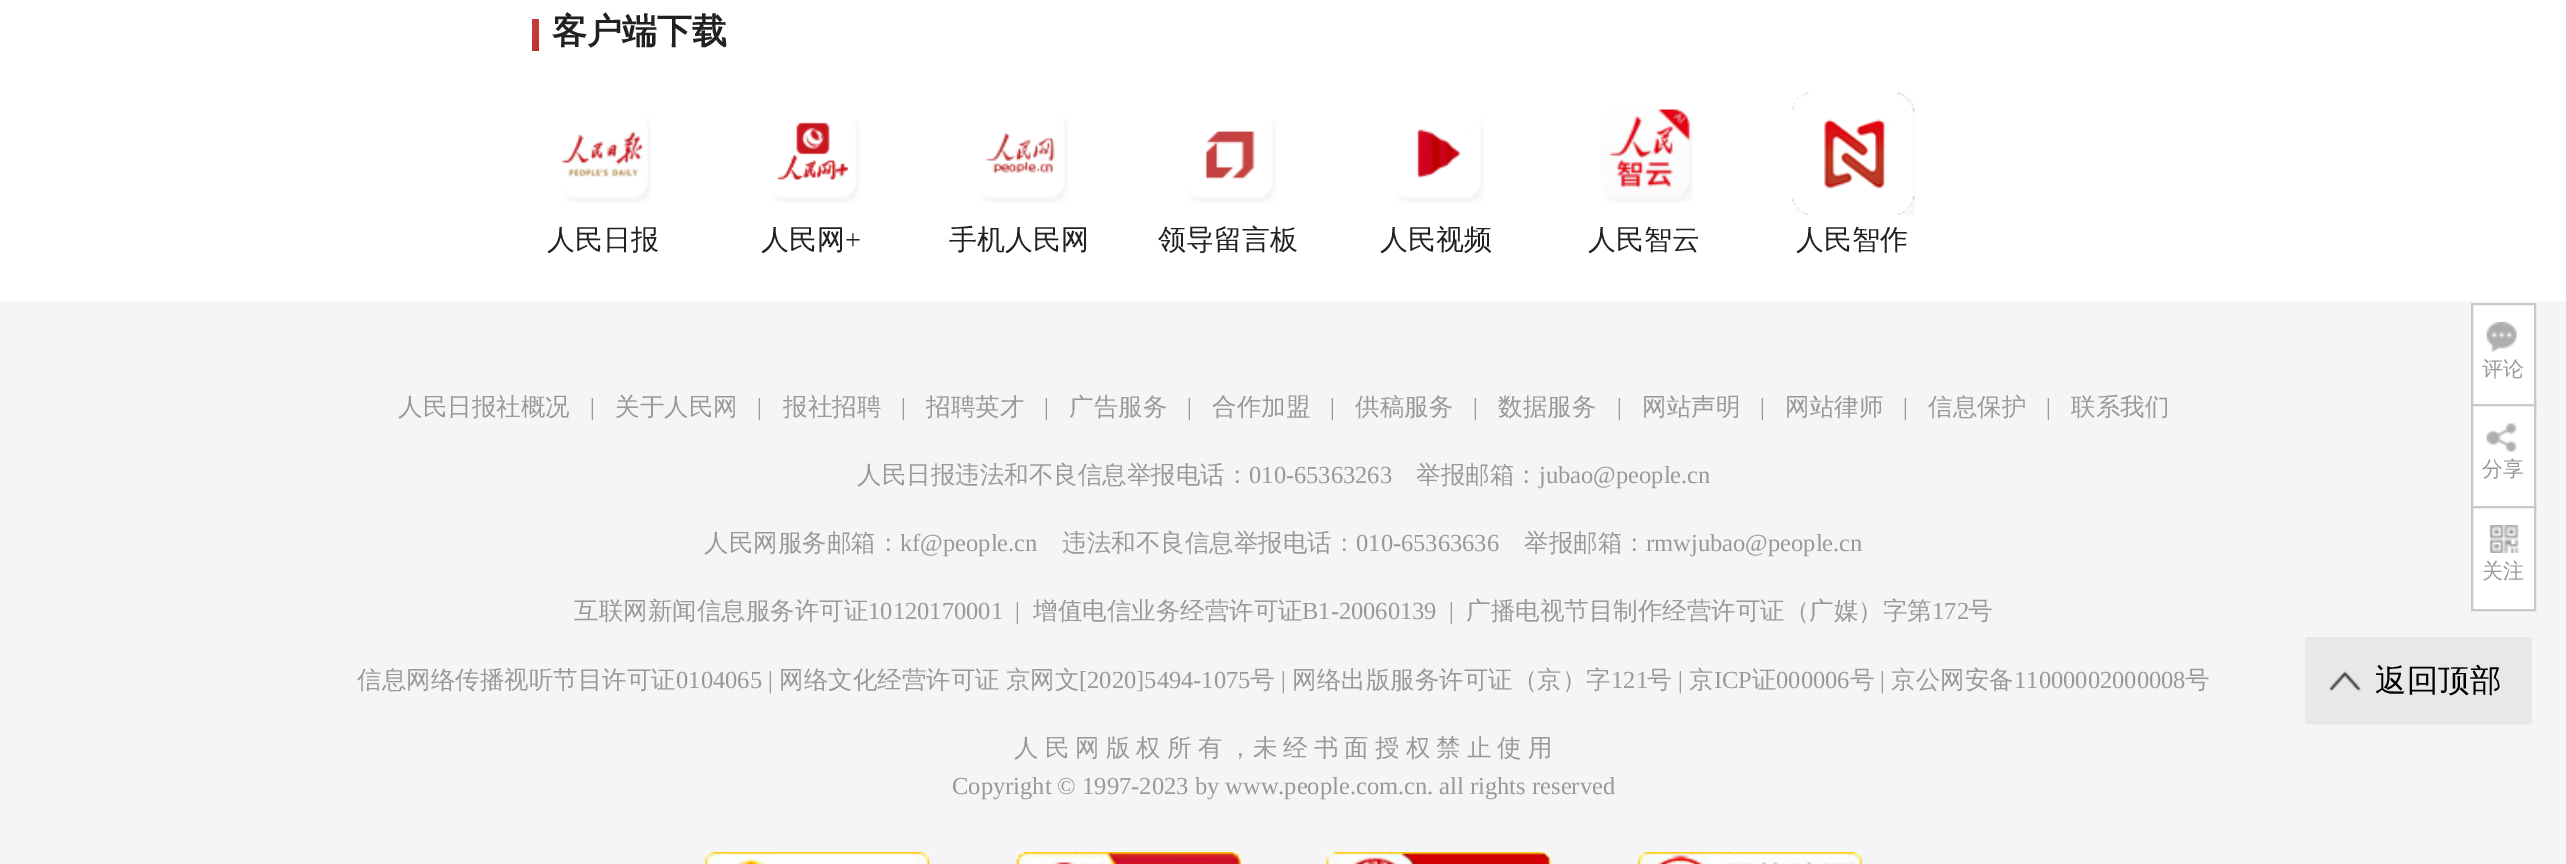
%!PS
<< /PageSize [2566 864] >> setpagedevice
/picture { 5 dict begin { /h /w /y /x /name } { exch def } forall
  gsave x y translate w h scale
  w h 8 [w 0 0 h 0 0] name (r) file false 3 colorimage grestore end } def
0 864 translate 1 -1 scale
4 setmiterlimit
1 setgray
0 0 2566 864 rectfill
gsave newpath 532 19 moveto 539 19 lineto 539 51 lineto 532 51 lineto closepath clip newpath
<< /ShadingType 2 /ColorSpace /DeviceRGB /Coords [526 25 545 45] /Extend [true true] /Function << /FunctionType 3 /Domain [0 1] /Functions [<< /FunctionType 2 /Domain [0 1] /C0 [0.773 0.239 0.239] /C1 [0.769 0.227 0.227] /N 1 >> << /FunctionType 2 /Domain [0 1] /C0 [0.769 0.227 0.227] /C1 [0.733 0.176 0.176] /N 1 >>] /Bounds [0.49] /Encode [0 1 0 1] >> >> shfill grestore
/WenQuanYiZenHei-Bold [35 0 0 -35 0 0] selectfont
0.129 setgray
552 43 moveto (客户端下载) show
(img1.rgb) 561 118 90 85 picture
/WenQuanYiZenHei-Medium [28 0 0 -28 0 0] selectfont
547 249 moveto (人民日报) show
(img2.rgb) 771 119 89 84 picture
761 249 moveto (人民网) show
/LiberationSerif-Regular [28 0 0 -28 0 0] selectfont
845 249 moveto (+) show
(img3.rgb) 980 118 88 85 picture
/WenQuanYiZenHei-Medium [28 0 0 -28 0 0] selectfont
949 249 moveto (手机人民网) show
(img4.rgb) 1186 119 90 84 picture
1158 249 moveto (领导留言板) show
(img5.rgb) 1396 118 88 85 picture
1380 249 moveto (人民视频) show
(img6.rgb) 1601 109 92 94 picture
1588 249 moveto (人民智云) show
(img7.rgb) 1792 92 123 123 picture
1796 249 moveto (人民智作) show
0.961 0.961 0.969 setrgbcolor
0 301 2566 563 rectfill
/WenQuanYiZenHei-Medium [24.5 0 0 -24.5 0 0] selectfont
0.6 setgray
398 415 moveto (人民日报社概况) show
/LiberationSerif-Regular [24.5 0 0 -24.5 0 0] selectfont
590 415 moveto (|) show
/WenQuanYiZenHei-Medium [24.5 0 0 -24.5 0 0] selectfont
615 415 moveto (关于人民网) show
/LiberationSerif-Regular [24.5 0 0 -24.5 0 0] selectfont
757 415 moveto (|) show
/WenQuanYiZenHei-Medium [24.5 0 0 -24.5 0 0] selectfont
783 415 moveto (报社招聘) show
/LiberationSerif-Regular [24.5 0 0 -24.5 0 0] selectfont
901 415 moveto (|) show
/WenQuanYiZenHei-Medium [24.5 0 0 -24.5 0 0] selectfont
926 415 moveto (招聘英才) show
/LiberationSerif-Regular [24.5 0 0 -24.5 0 0] selectfont
1044 415 moveto (|) show
/WenQuanYiZenHei-Medium [24.5 0 0 -24.5 0 0] selectfont
1069 415 moveto (广告服务) show
/LiberationSerif-Regular [24.5 0 0 -24.5 0 0] selectfont
1187 415 moveto (|) show
/WenQuanYiZenHei-Medium [24.5 0 0 -24.5 0 0] selectfont
1212 415 moveto (合作加盟) show
/LiberationSerif-Regular [24.5 0 0 -24.5 0 0] selectfont
1330 415 moveto (|) show
/WenQuanYiZenHei-Medium [24.5 0 0 -24.5 0 0] selectfont
1355 415 moveto (供稿服务) show
/LiberationSerif-Regular [24.5 0 0 -24.5 0 0] selectfont
1473 415 moveto (|) show
/WenQuanYiZenHei-Medium [24.5 0 0 -24.5 0 0] selectfont
1498 415 moveto (数据服务) show
/LiberationSerif-Regular [24.5 0 0 -24.5 0 0] selectfont
1617 415 moveto (|) show
/WenQuanYiZenHei-Medium [24.5 0 0 -24.5 0 0] selectfont
1642 415 moveto (网站声明) show
/LiberationSerif-Regular [24.5 0 0 -24.5 0 0] selectfont
1760 415 moveto (|) show
/WenQuanYiZenHei-Medium [24.5 0 0 -24.5 0 0] selectfont
1785 415 moveto (网站律师) show
/LiberationSerif-Regular [24.5 0 0 -24.5 0 0] selectfont
1903 415 moveto (|) show
/WenQuanYiZenHei-Medium [24.5 0 0 -24.5 0 0] selectfont
1928 415 moveto (信息保护) show
/LiberationSerif-Regular [24.5 0 0 -24.5 0 0] selectfont
2046 415 moveto (|) show
/WenQuanYiZenHei-Medium [24.5 0 0 -24.5 0 0] selectfont
2071 415 moveto (联系我们) show
857 483 moveto (人民日报违法和不良信息举报电话：) show
/LiberationSerif-Regular [24.5 0 0 -24.5 0 0] selectfont
1249 483 moveto (010-65363263) show
/WenQuanYiZenHei-Medium [24.5 0 0 -24.5 0 0] selectfont
1416 483 moveto (举报邮箱：) show
/LiberationSerif-Regular [24.5 0 0 -24.5 0 0] selectfont
1539 483 moveto (jubao@people.cn) show
/WenQuanYiZenHei-Medium [24.5 0 0 -24.5 0 0] selectfont
704 551 moveto (人民网服务邮箱：) show
/LiberationSerif-Regular [24.5 0 0 -24.5 0 0] selectfont
900 551 moveto (kf@people.cn) show
/WenQuanYiZenHei-Medium [24.5 0 0 -24.5 0 0] selectfont
1062 551 moveto (违法和不良信息举报电话：) show
/LiberationSerif-Regular [24.5 0 0 -24.5 0 0] selectfont
1356 551 moveto (010-65363636) show
/WenQuanYiZenHei-Medium [24.5 0 0 -24.5 0 0] selectfont
1524 551 moveto (举报邮箱：) show
/LiberationSerif-Regular [24.5 0 0 -24.5 0 0] selectfont
1646 551 moveto (rmwjubao@people.cn) show
/WenQuanYiZenHei-Medium [24.5 0 0 -24.5 0 0] selectfont
574 619 moveto (互联网新闻信息服务许可证) show
/LiberationSerif-Regular [24.5 0 0 -24.5 0 0] selectfont
868 619 moveto (10120170001) show
1015 619 moveto (|) show
/WenQuanYiZenHei-Medium [24.5 0 0 -24.5 0 0] selectfont
1033 619 moveto (增值电信业务经营许可证) show
/LiberationSerif-Regular [24.5 0 0 -24.5 0 0] selectfont
1302 619 moveto (B1-20060139) show
1449 619 moveto (|) show
/WenQuanYiZenHei-Medium [24.5 0 0 -24.5 0 0] selectfont
1466 619 moveto (广播电视节目制作经营许可证（广媒）字第) show
/LiberationSerif-Regular [24.5 0 0 -24.5 0 0] selectfont
1932 619 moveto (172) show
/WenQuanYiZenHei-Medium [24.5 0 0 -24.5 0 0] selectfont
1968 619 moveto (号) show
357 688 moveto (信息网络传播视听节目许可证) show
/LiberationSerif-Regular [24.5 0 0 -24.5 0 0] selectfont
676 688 moveto (0104065 |) show
/WenQuanYiZenHei-Medium [24.5 0 0 -24.5 0 0] selectfont
779 688 moveto -1.25 0 32 (网络文化经营许可证 京网文) widthshow
/LiberationSerif-Regular [24.5 0 0 -24.5 0 0] selectfont
1079 688 moveto ([2020]5494-1075) show
/WenQuanYiZenHei-Medium [24.5 0 0 -24.5 0 0] selectfont
1250 688 moveto (号) show
/LiberationSerif-Regular [24.5 0 0 -24.5 0 0] selectfont
1281 688 moveto (|) show
/WenQuanYiZenHei-Medium [24.5 0 0 -24.5 0 0] selectfont
1292 688 moveto (网络出版服务许可证（京）字) show
/LiberationSerif-Regular [24.5 0 0 -24.5 0 0] selectfont
1611 688 moveto (121) show
/WenQuanYiZenHei-Medium [24.5 0 0 -24.5 0 0] selectfont
1647 688 moveto (号) show
/LiberationSerif-Regular [24.5 0 0 -24.5 0 0] selectfont
1678 688 moveto (|) show
/WenQuanYiZenHei-Medium [24.5 0 0 -24.5 0 0] selectfont
1689 688 moveto (京) show
/LiberationSerif-Regular [24.5 0 0 -24.5 0 0] selectfont
1714 688 moveto (ICP) show
/WenQuanYiZenHei-Medium [24.5 0 0 -24.5 0 0] selectfont
1752 688 moveto (证) show
/LiberationSerif-Regular [24.5 0 0 -24.5 0 0] selectfont
1776 688 moveto (000006) show
/WenQuanYiZenHei-Medium [24.5 0 0 -24.5 0 0] selectfont
1850 688 moveto (号) show
/LiberationSerif-Regular [24.5 0 0 -24.5 0 0] selectfont
1880 688 moveto (|) show
/WenQuanYiZenHei-Medium [24.5 0 0 -24.5 0 0] selectfont
1891 688 moveto (京公网安备) show
/LiberationSerif-Regular [24.5 0 0 -24.5 0 0] selectfont
2014 688 moveto (11000002000008) show
/WenQuanYiZenHei-Medium [24.5 0 0 -24.5 0 0] selectfont
2185 688 moveto (号) show
1014 756 moveto -1.25 0 32 (人 民 网 版 权 所 有 ，未 经 书 面 授 权 禁 止 使 用) widthshow
/LiberationSerif-Regular [24.5 0 0 -24.5 0 0] selectfont
952 794 moveto (Copyright © 1997-2023 by www.people.com.cn. all rights reserved) show
(img8.rgb) 705 852 225 12 picture
(img9.rgb) 1016 852 225 12 picture
(img10.rgb) 1326 852 225 12 picture
(img11.rgb) 1638 852 224 12 picture
1 setgray
2473 305 61 99 rectfill
0.788 setgray
2 setlinewidth
2472 304 63 105 rectstroke
(img12.rgb) 2486 322 31 30 picture
/WenQuanYiZenHei-Medium [21 0 0 -21 0 0] selectfont
0.6 setgray
2482 376 moveto (评论) show
1 setgray
2473 406 61 100 rectfill
0.788 setgray
2472 405 63 103 rectstroke
(img13.rgb) 2486 423 31 29 picture
0.6 setgray
2482 476 moveto (分享) show
1 setgray
newpath 2472 507 moveto 2535 507 lineto 2535 610 lineto 2472 610 lineto closepath gsave fill grestore
0.788 setgray
stroke
(img14.rgb) 2489 525 30 28 picture
0.6 setgray
2482 578 moveto (关注) show
(img15.rgb) 2305 637 227 88 picture
/WenQuanYiZenHei-Medium [31.5 0 0 -31.5 0 0] selectfont
0 setgray
2375 691 moveto (返回顶部) show
showpage
